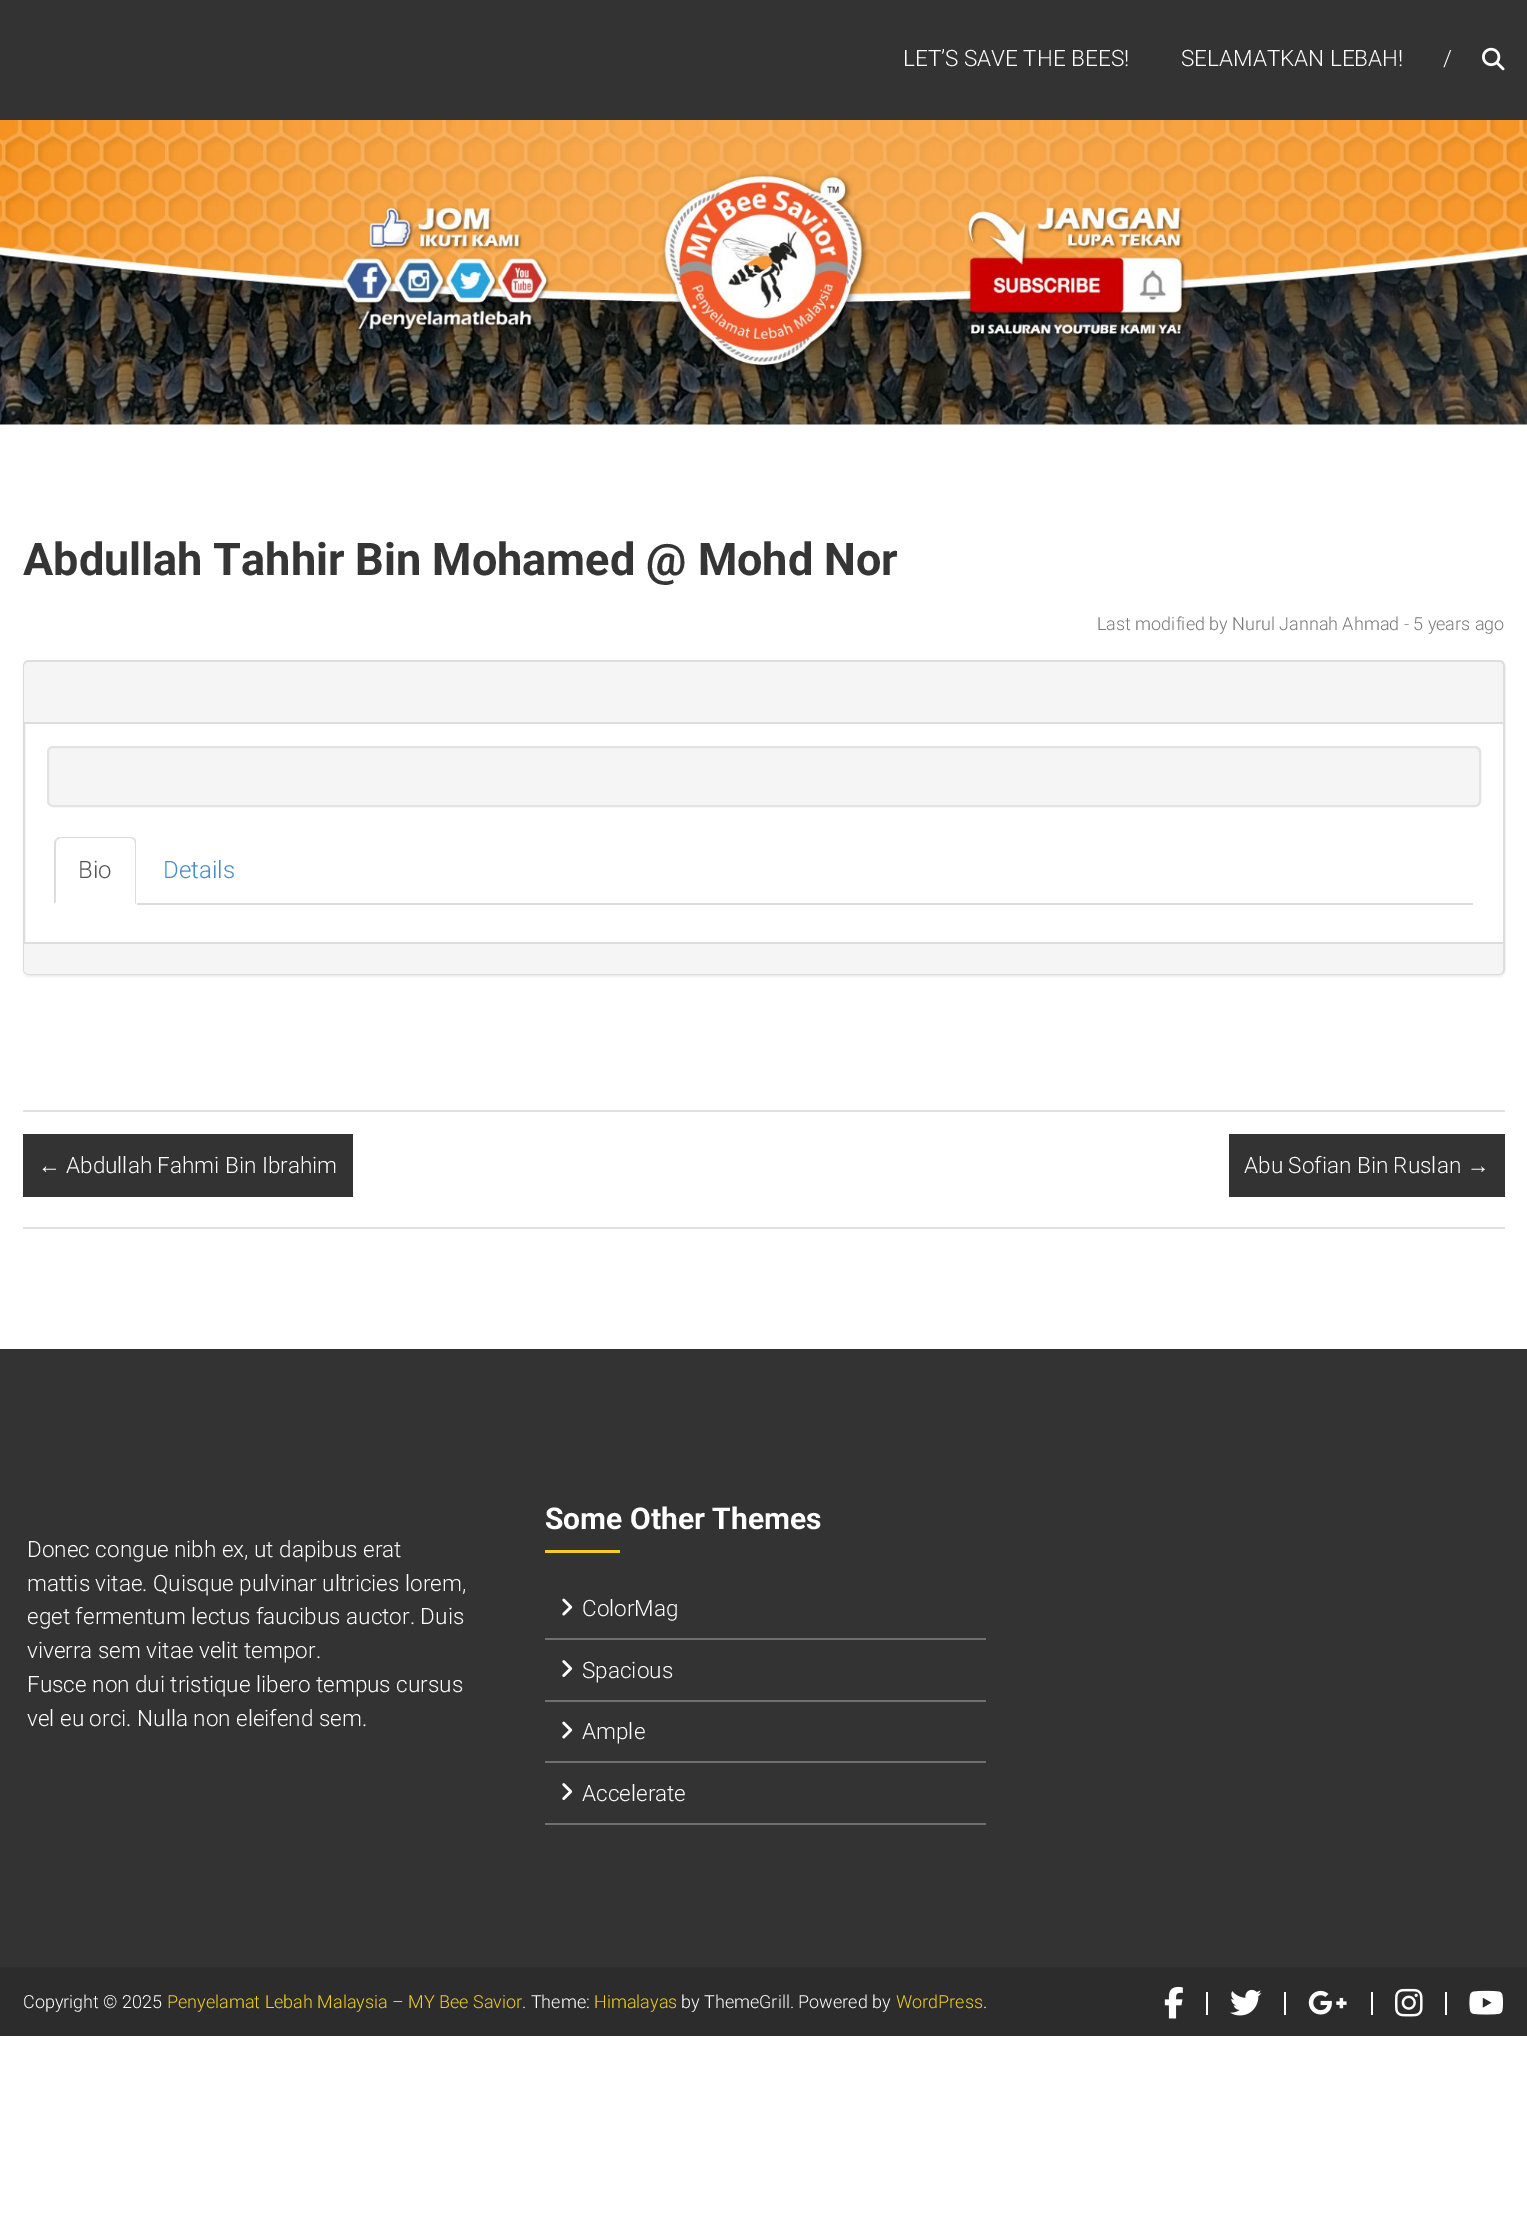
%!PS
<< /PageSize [1527 2223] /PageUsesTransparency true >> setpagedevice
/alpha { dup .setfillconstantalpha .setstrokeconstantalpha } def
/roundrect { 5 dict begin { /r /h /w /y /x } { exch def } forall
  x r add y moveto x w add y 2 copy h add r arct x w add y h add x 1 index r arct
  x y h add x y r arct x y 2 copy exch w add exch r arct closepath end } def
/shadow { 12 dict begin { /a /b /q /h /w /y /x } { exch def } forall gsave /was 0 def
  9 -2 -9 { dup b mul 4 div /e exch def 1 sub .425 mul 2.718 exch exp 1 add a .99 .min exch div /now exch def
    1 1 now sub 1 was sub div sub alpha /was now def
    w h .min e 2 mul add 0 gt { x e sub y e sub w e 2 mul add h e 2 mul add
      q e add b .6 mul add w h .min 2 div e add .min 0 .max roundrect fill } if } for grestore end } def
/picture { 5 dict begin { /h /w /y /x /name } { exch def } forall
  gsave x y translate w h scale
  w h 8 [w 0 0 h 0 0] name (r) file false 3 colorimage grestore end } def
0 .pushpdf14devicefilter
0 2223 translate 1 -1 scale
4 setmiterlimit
1 setgray
0 0 1527 2223 rectfill
0.2 setgray
0 0 1527 120 rectfill
/Roboto-Light [22.5 0 0 -22.5 0 0] selectfont
1 setgray
903 66 moveto (LET’S SAVE THE BEES!) show
1181 66 moveto (SELAMATKAN LEBAH!) show
1443 66 moveto (/) show
(img1.rgb) 1482 47 23 24 picture
(img2.rgb) 0 120 1527 305 picture
0.882 setgray
23 1110 1482 2 rectfill
/Roboto-Bold [45 0 0 -45 0 0] selectfont
0.208 setgray
23 575 moveto (Abdullah Tahhir Bin Mohamed @ Mohd Nor) show
/Roboto-Light [18 0 0 -18 0 0] selectfont
0.467 setgray
1097 630 moveto (Last modified by Nurul Jannah Ahmad - 5 years ago) show
0 setgray
23 662 1482 315 6 1 0.05 shadow
1 setgray
24 661 1480 313 5 roundrect gsave fill grestore
0.867 setgray
2 setlinewidth
stroke
0.961 setgray
newpath 29 662 moveto 1498 662 lineto 1501 662 1503 664 1503 667 curveto 1503 723 lineto 24 723 lineto 24 667 lineto 24 664 26 662 29 662 curveto closepath fill
0.867 setgray
24 722 1479 2 rectfill
0.961 setgray
47 746 1434 61 6 roundrect fill
0.914 setgray
newpath 52 748 moveto 1474 748 lineto 1477 748 1479 751 1479 753 curveto 1479 750 1477 747 1474 747 curveto 53 747 lineto 50 747 48 750 48 753 curveto 48 751 50 748 52 748 curveto closepath fill
0.89 setgray
48 747 1432 59 5 roundrect stroke
0.867 setgray
137 903 1336 2 rectfill
newpath 60 837 moveto 58 837 57 838 56 839 curveto 57 840 lineto 60 838 lineto 131 838 lineto 134 840 lineto 135 839 lineto 134 838 132 837 130 837 curveto closepath fill
newpath 135 839 moveto 136 840 136 842 136 843 curveto 136 904 lineto 135 903 lineto 135 843 lineto 135 842 135 841 134 840 curveto closepath fill
newpath 54 843 moveto 54 904 lineto 56 902 lineto 56 843 lineto 57 840 lineto 56 839 lineto 55 840 54 842 54 843 curveto closepath fill
/Roboto-Light [24 0 0 -24 0 0] selectfont
0.333 setgray
78 878 moveto (Bio) show
0.259 0.545 0.792 setrgbcolor
163 878 moveto (Details) show
0.961 setgray
newpath 24 942 moveto 1503 942 lineto 1503 969 lineto 1503 972 1501 974 1498 974 curveto 29 974 lineto 26 974 24 972 24 969 curveto closepath fill
0.867 setgray
24 942 1479 2 rectfill
0.882 setgray
23 1227 1482 2 rectfill
0.2 setgray
23 1134 330 63 rectfill
/LiberationSans-Regular [22.5 0 0 -22.5 0 0] selectfont
1 setgray
38 1173 moveto (←) show
/Roboto-Light [22.5 0 0 -22.5 0 0] selectfont
66 1173 moveto (Abdullah Fahmi Bin Ibrahim) show
0.2 setgray
1229 1134 276 63 rectfill
1 setgray
1244 1173 moveto (Abu Sofian Bin Ruslan) show
/LiberationSans-Regular [22.5 0 0 -22.5 0 0] selectfont
1467 1173 moveto (→) show
0.2 setgray
0 1349 1527 618 rectfill
/Roboto-Light [22.5 0 0 -22.5 0 0] selectfont
1 setgray
27 1557 moveto (Donec congue nibh ex, ut dapibus erat) show
27 1591 moveto (mattis vitae. Quisque pulvinar ultricies lorem,) show
27 1624 moveto (eget fermentum lectus faucibus auctor. Duis) show
27 1658 moveto (viverra sem vitae velit tempor.) show
27 1692 moveto (Fusce non dui tristique libero tempus cursus) show
27 1726 moveto (vel eu orci. Nulla non eleifend sem.) show
/Roboto-Bold [30 0 0 -30 0 0] selectfont
545 1529 moveto (Some Other Themes) show
0.949 0.812 0.129 setrgbcolor
545 1550 75 3 rectfill
0.439 setgray
545 1638 441 2 rectfill
(img3.rgb) 562 1598 11 18 picture
/Roboto-Light [22.5 0 0 -22.5 0 0] selectfont
1 setgray
582 1616 moveto (ColorMag) show
0.439 setgray
545 1700 441 2 rectfill
(img4.rgb) 562 1660 11 17 picture
1 setgray
582 1678 moveto (Spacious) show
0.439 setgray
545 1761 441 2 rectfill
(img3.rgb) 562 1721 11 18 picture
1 setgray
582 1739 moveto (Ample) show
0.439 setgray
545 1823 441 2 rectfill
(img4.rgb) 562 1783 11 17 picture
1 setgray
582 1801 moveto (Accelerate) show
0.173 setgray
0 1967 1527 69 rectfill
/Roboto-Light [18 0 0 -18 0 0] selectfont
1 setgray
23 2008 moveto (Copyright © 2025) show
0.949 0.812 0.129 setrgbcolor
167 2008 moveto (Penyelamat Lebah Malaysia – MY Bee Savior) show
1 setgray
522 2008 moveto (. Theme:) show
0.949 0.812 0.129 setrgbcolor
594 2008 moveto (Himalayas) show
1 setgray
681 2008 moveto (by ThemeGrill. Powered by) show
0.949 0.812 0.129 setrgbcolor
896 2008 moveto (WordPress) show
1 setgray
983 2008 moveto (.) show
(img5.rgb) 1164 1986 19 33 picture
1206 1992 2 23 rectfill
(img6.rgb) 1230 1989 32 27 picture
1284 1992 2 23 rectfill
(img7.rgb) 1308 1990 39 25 picture
1371 1992 2 23 rectfill
(img8.rgb) 1395 1988 28 29 picture
1445 1992 2 23 rectfill
(img9.rgb) 1469 1990 34 25 picture
.poppdf14devicefilter showpage
